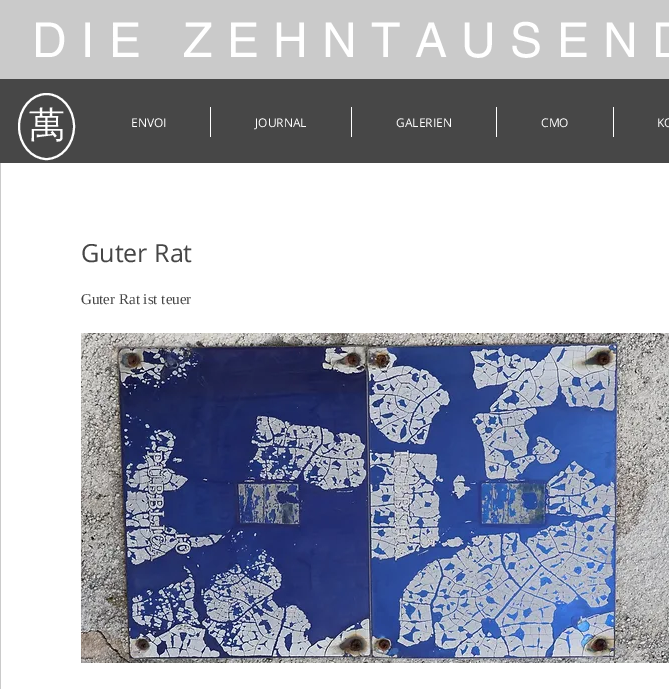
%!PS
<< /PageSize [669 689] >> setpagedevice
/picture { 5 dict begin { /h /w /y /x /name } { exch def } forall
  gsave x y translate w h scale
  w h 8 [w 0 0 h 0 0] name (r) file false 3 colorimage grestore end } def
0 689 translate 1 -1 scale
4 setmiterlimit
0.792 setgray
0 0 669 689 rectfill
/helvetica-Regular [48 0 0 -48 0 0] selectfont
1 setgray
32 57 moveto 14.4 0 (DIE ZEHNTAUSEND) ashow
0.278 setgray
0 79 669 84 rectfill
1 setgray
2 setlinewidth
newpath 46.5 94 moveto 61.5 94 74 108.5 74 126.5 curveto 74 144.5 61.5 159 46.5 159 curveto 31.5 159 19 144.5 19 126.5 curveto 19 108.5 31.5 94 46.5 94 curveto closepath stroke
/WenQuanYiZenHei-Medium [36 0 0 -36 0 0] selectfont
29 137 moveto (萬) show
/OpenSans-Regular [12 0 0 -12 0 0] selectfont
131 127 moveto (ENVOI) show
210 107 1 30 rectfill
255 127 moveto (JOURNAL) show
351 107 1 30 rectfill
396 127 moveto (GALERIEN) show
496 107 1 30 rectfill
541 127 moveto (CMO) show
613 107 1 30 rectfill
657 127 moveto (KO) show
1 163 668 526 rectfill
/OpenSans-Regular [25 0 0 -25 0 0] selectfont
0.275 setgray
81 262 moveto (Guter Rat) show
/LiberationSerif-Regular [15 0 0 -15 0 0] selectfont
81 304 moveto (Guter Rat ist teuer) show
(img1.rgb) 81 333 588 330 picture
showpage
